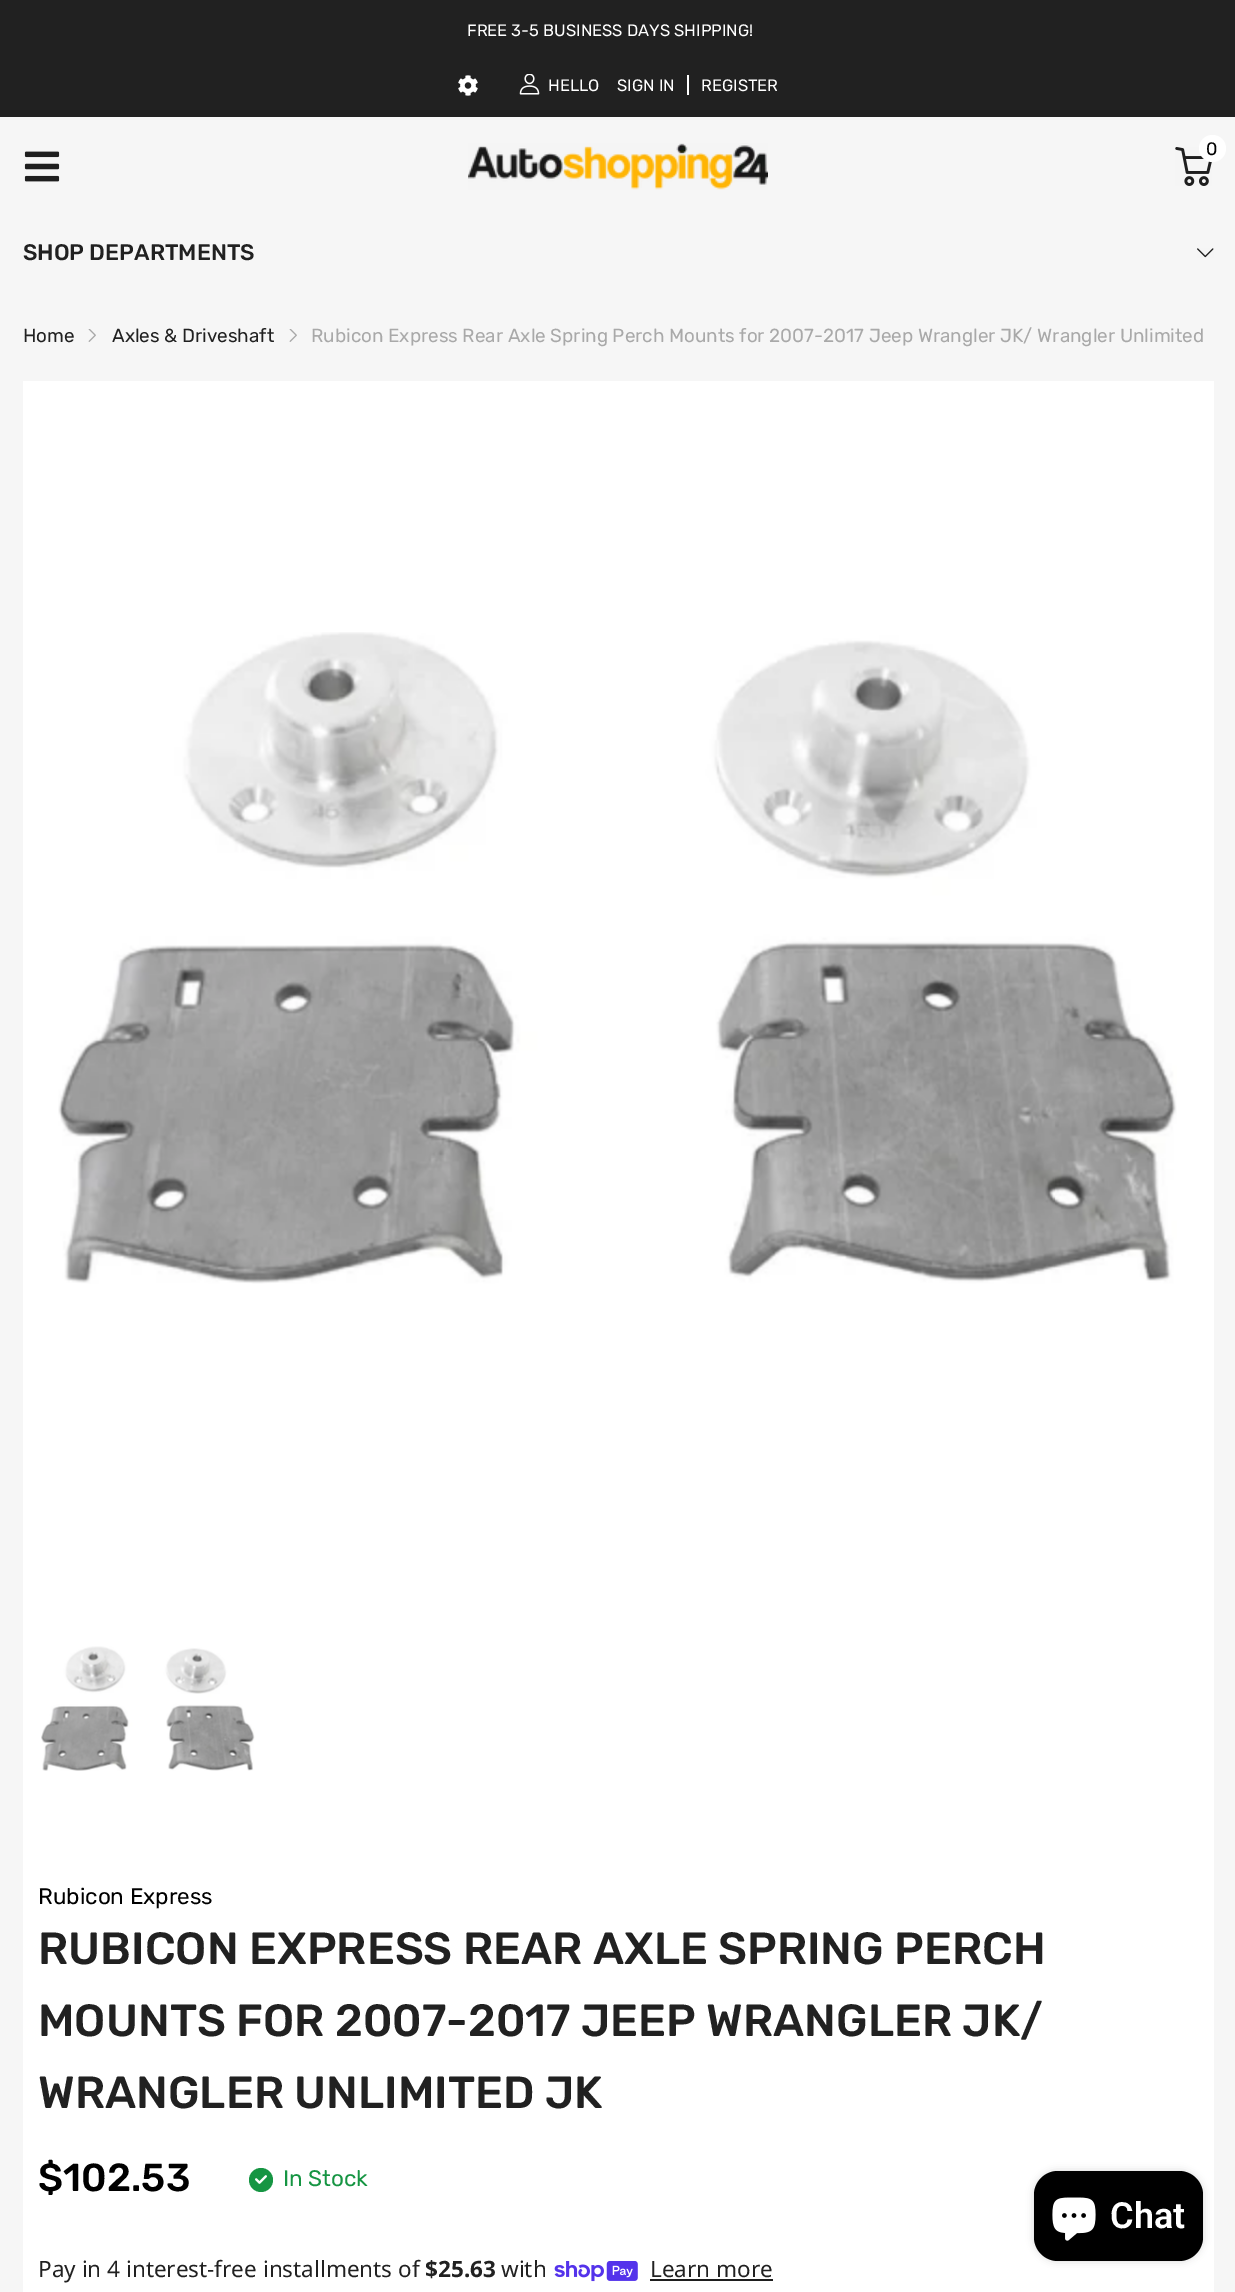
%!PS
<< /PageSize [1235 2292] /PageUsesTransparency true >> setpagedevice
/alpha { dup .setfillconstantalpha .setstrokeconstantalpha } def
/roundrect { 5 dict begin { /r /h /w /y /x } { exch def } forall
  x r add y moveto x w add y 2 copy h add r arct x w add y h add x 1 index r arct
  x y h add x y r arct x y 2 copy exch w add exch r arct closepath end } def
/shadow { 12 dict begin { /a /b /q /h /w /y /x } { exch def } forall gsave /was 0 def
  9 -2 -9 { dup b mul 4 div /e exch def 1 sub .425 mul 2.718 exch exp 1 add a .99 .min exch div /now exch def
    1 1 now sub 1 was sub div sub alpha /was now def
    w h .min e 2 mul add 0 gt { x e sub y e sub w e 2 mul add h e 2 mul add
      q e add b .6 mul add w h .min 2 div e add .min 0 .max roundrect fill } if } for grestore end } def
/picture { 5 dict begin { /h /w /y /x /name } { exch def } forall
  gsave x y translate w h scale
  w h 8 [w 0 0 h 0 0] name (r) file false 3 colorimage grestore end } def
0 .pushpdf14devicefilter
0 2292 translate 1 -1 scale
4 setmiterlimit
0.965 setgray
0 0 1235 2292 rectfill
0.129 setgray
0 0 1235 117 rectfill
/Rubik-Regular [16.5 0 0 -16.5 0 0] selectfont
1 setgray
467 36 moveto (FREE 3-5 BUSINESS DAYS SHIPPING!) show
(img1.rgb) 458 75 20 21 picture
(img2.rgb) 519 74 21 21 picture
548 91 moveto (HELLO) show
617 91 moveto (SIGN IN) show
701 91 moveto (REGISTER) show
687 75 2 20 rectfill
(img3.rgb) 24 151 36 31 picture
(img4.rgb) 468 143 300 47 picture
(img5.rgb) 1175 147 37 39 picture
newpath 1212.5 148.5 13.5 0 360 arc closepath fill
/Rubik-Regular [18 0 0 -18 0 0] selectfont
0 setgray
1206 155 moveto (0) show
/Rubik-Medium [22.5 0 0 -22.5 0 0] selectfont
0.129 setgray
23 260 moveto (SHOP DEPARTMENTS) show
(img6.rgb) 1197 248 17 10 picture
/Rubik-Regular [18.9 0 0 -18.9 0 0] selectfont
23 342 moveto (Home) show
(img7.rgb) 88 329 8 13 picture
112 342 moveto (Axles & Driveshaft) show
(img7.rgb) 289 329 8 13 picture
0.663 setgray
311 342 moveto (Rubicon Express Rear Axle Spring Perch Mounts for 2007-2017 Jeep Wrangler JK/ Wrangler Unlimited) show
1 setgray
23 381 1191 1911 rectfill
(img8.rgb) 58 632 1119 652 picture
(img9.rgb) 41 1646 214 125 picture
/Rubik-Regular [22.5 0 0 -22.5 0 0] selectfont
0 setgray
38 1904 moveto (Rubicon Express) show
/Rubik-Medium [45 0 0 -45 0 0] selectfont
0.129 setgray
38 1964 moveto (RUBICON EXPRESS REAR AXLE SPRING PERCH) show
38 2036 moveto (MOUNTS FOR 2007-2017 JEEP WRANGLER JK/) show
38 2108 moveto (WRANGLER UNLIMITED JK) show
/Rubik-Medium [39 0 0 -39 0 0] selectfont
0 setgray
38 2191 moveto ($102.53) show
0.086 0.584 0.263 setrgbcolor
newpath 261 2180 12 0 360 arc closepath fill
(img10.rgb) 255 2175 12 9 picture
/Rubik-Regular [22.5 0 0 -22.5 0 0] selectfont
283 2186 moveto (In Stock) show
/NotoSans-Regular [22.5 0 0 -22.5 0 0] selectfont
0.129 setgray
38 2277 moveto (Pay in 4 interest-free installments of) show
/NotoSans-Bold [22.5 0 0 -22.5 0 0] selectfont
425 2277 moveto ($25.63) show
/NotoSans-Regular [22.5 0 0 -22.5 0 0] selectfont
501 2277 moveto (with) show
(img11.rgb) 554 2261 84 21 picture
650 2277 moveto (Learn more) show
0.118 setgray
650 2279 123 2 rectfill
0 setgray
1034 2171 169 90 24 4 0.15 shadow
1034 2171 169 90 24 roundrect fill
(img12.rgb) 1052 2197 44 44 picture
/Roboto-SemiBold [36 0 0 -36 0 0] selectfont
1 setgray
1110 2228 moveto (Chat) show
.poppdf14devicefilter showpage
